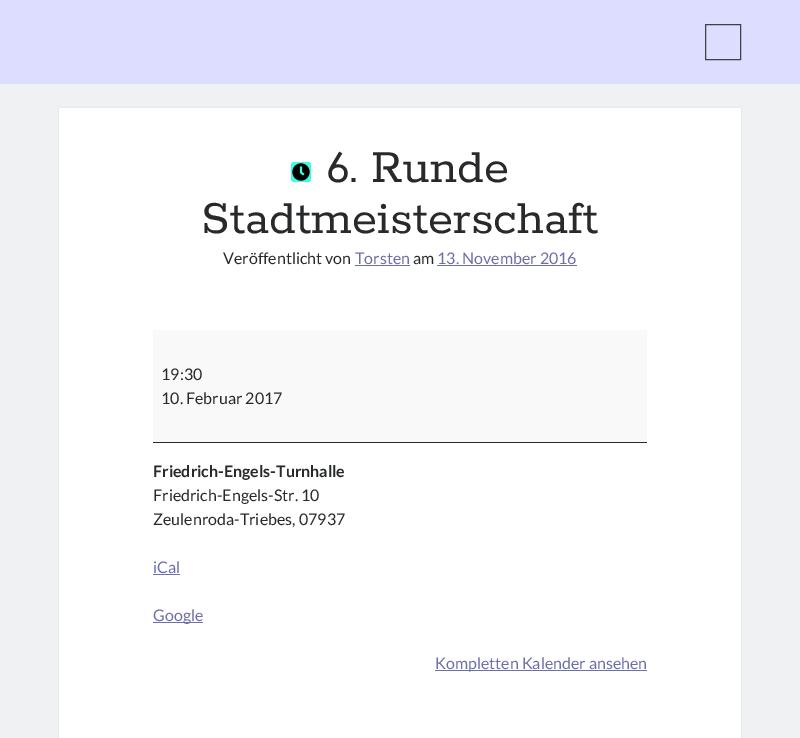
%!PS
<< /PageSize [800 738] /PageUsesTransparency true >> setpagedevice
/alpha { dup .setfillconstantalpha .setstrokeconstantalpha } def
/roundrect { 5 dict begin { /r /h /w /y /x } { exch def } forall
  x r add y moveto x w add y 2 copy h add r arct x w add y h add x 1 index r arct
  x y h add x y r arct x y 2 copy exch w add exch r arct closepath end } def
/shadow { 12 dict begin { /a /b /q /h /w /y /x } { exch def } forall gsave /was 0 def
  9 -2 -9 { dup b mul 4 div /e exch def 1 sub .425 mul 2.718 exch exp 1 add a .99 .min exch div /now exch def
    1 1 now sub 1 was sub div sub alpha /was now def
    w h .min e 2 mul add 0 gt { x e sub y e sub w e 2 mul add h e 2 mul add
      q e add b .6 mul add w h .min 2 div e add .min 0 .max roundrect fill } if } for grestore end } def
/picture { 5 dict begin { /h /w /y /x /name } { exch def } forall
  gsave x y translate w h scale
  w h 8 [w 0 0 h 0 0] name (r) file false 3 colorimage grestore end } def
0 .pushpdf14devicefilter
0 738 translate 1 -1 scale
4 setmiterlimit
0.867 0.867 1 setrgbcolor
0 0 800 738 rectfill
0.243 0.255 0.271 setrgbcolor
705.5 24.5 35 35 rectstroke
0.941 0.945 0.949 setrgbcolor
0 84 800 654 rectfill
0.153 0.169 0.184 setrgbcolor
59 108 682 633 0 1 0.1 shadow
1 setgray
59 108 682 630 rectfill
0.227 1 0.894 setrgbcolor
291 162 20 20 3 roundrect fill
/Rokkitt-Regular [51 0 0 -51 0 0] selectfont
0.153 0.161 0.169 setrgbcolor
326 182 moveto (6. Runde) show
(img1.rgb) 292 163 18 18 picture
201 233 moveto (Stadtmeisterschaft) show
/Lato-Regular [16 0 0 -16 0 0] selectfont
223 264 moveto (Veröffentlicht von) show
0.431 0.431 0.667 setrgbcolor
355 264 moveto (Torsten) show
355 265 55 1 rectfill
0.153 0.161 0.169 setrgbcolor
413 264 moveto (am) show
0.431 0.431 0.667 setrgbcolor
437 264 moveto (13. November 2016) show
437 265 140 1 rectfill
0.976 setgray
153 330 494 112 rectfill
0.153 0.161 0.169 setrgbcolor
153 442 494 1 rectfill
161 380 moveto (19:30) show
161 404 moveto (10. Februar 2017) show
/Lato-Bold [16 0 0 -16 0 0] selectfont
153 477 moveto (Friedrich-Engels-Turnhalle) show
/Lato-Regular [16 0 0 -16 0 0] selectfont
153 501 moveto (Friedrich-Engels-Str. 10) show
153 525 moveto (Zeulenroda-Triebes, 07937) show
0.431 0.431 0.667 setrgbcolor
153 573 moveto (iCal) show
153 574 27 1 rectfill
153 622 50 1 rectfill
153 621 moveto (Google) show
435 670 212 1 rectfill
435 669 moveto (Kompletten Kalender ansehen) show
.poppdf14devicefilter showpage
